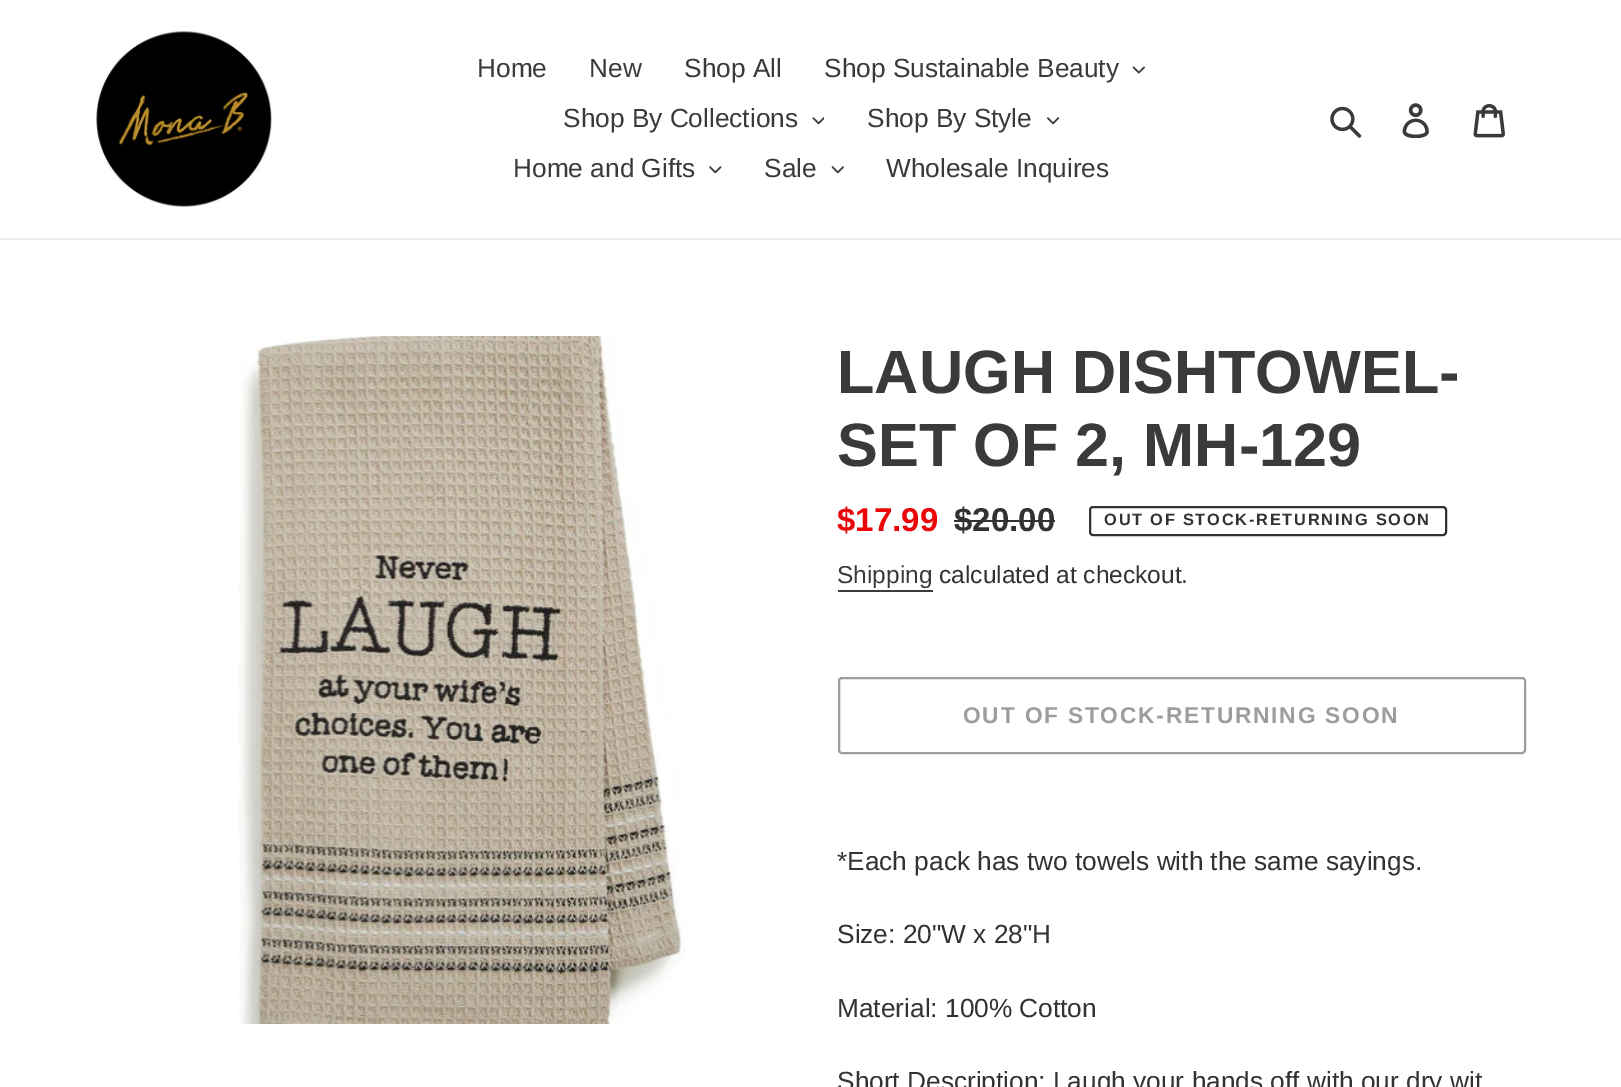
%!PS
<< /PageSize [1621 1087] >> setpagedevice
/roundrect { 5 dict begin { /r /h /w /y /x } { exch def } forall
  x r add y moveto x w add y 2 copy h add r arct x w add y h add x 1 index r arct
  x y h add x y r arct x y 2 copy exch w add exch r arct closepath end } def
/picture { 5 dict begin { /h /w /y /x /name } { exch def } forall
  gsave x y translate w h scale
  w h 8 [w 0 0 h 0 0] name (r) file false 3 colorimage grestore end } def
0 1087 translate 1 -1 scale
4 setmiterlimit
1 setgray
0 0 1621 1087 rectfill
0.922 setgray
0 238 1621 2 rectfill
(img1.rgb) 96 31 176 176 picture
/LiberationSans-Regular [26.25 0 0 -26.25 0 0] selectfont
0.227 setgray
477 77 moveto (Home) show
589 77 moveto (New) show
684 77 moveto (Shop All) show
824 77 moveto (Shop Sustainable Beauty) show
(img2.rgb) 1132 66 13 8 picture
563 127 moveto (Shop By Collections) show
(img3.rgb) 812 117 12 8 picture
867 127 moveto (Shop By Style) show
(img4.rgb) 1047 117 12 8 picture
513 177 moveto (Home and Gifts) show
(img5.rgb) 709 166 13 8 picture
764 177 moveto (Sale) show
(img6.rgb) 831 166 13 8 picture
886 177 moveto (Wholesale Inquires) show
(img7.rgb) 1330 106 32 32 picture
(img8.rgb) 1402 103 27 35 picture
(img9.rgb) 1473 103 32 35 picture
(img10.rgb) 238 336 447 688 picture
/LiberationSans-Bold [61.25 0 0 -61.25 0 0] selectfont
837 393 moveto (LAUGH DISHTOWEL-) show
837 466 moveto (SET OF 2, MH-129) show
/LiberationSans-Bold [33 0 0 -33 0 0] selectfont
0.918 0.024 0.024 setrgbcolor
837 531 moveto ($17.99) show
0.2 0.196 0.196 setrgbcolor
954 531 moveto ($20.00) show
954 520 101 2 rectfill
2 setlinewidth
1090 507 356 28 3 roundrect stroke
/LiberationSans-Bold [16.4 0 0 -16.4 0 0] selectfont
1104 525 moveto 1.75 0 (OUT OF STOCK-RETURNING SOON) ashow
/LiberationSans-Regular [24.5 0 0 -24.5 0 0] selectfont
0.227 setgray
837 583 moveto (Shipping) show
838 590 95 2 rectfill
0.2 0.196 0.196 setrgbcolor
939 583 moveto (calculated at checkout.) show
0.616 setgray
839 678 686 75 3 roundrect stroke
/LiberationSans-Bold [22.75 0 0 -22.75 0 0] selectfont
963 723 moveto 1.8 0 (OUT OF STOCK-RETURNING SOON) ashow
/LiberationSans-Regular [26.25 0 0 -26.25 0 0] selectfont
0.2 0.196 0.196 setrgbcolor
837 870 moveto (*Each pack has two towels with the same sayings.) show
837 943 moveto (Size: 20"W x 28"H) show
837 1017 moveto (Material: 100% Cotton) show
837 1090 moveto (Short Description: Laugh your hands off with our dry wit) show
showpage
